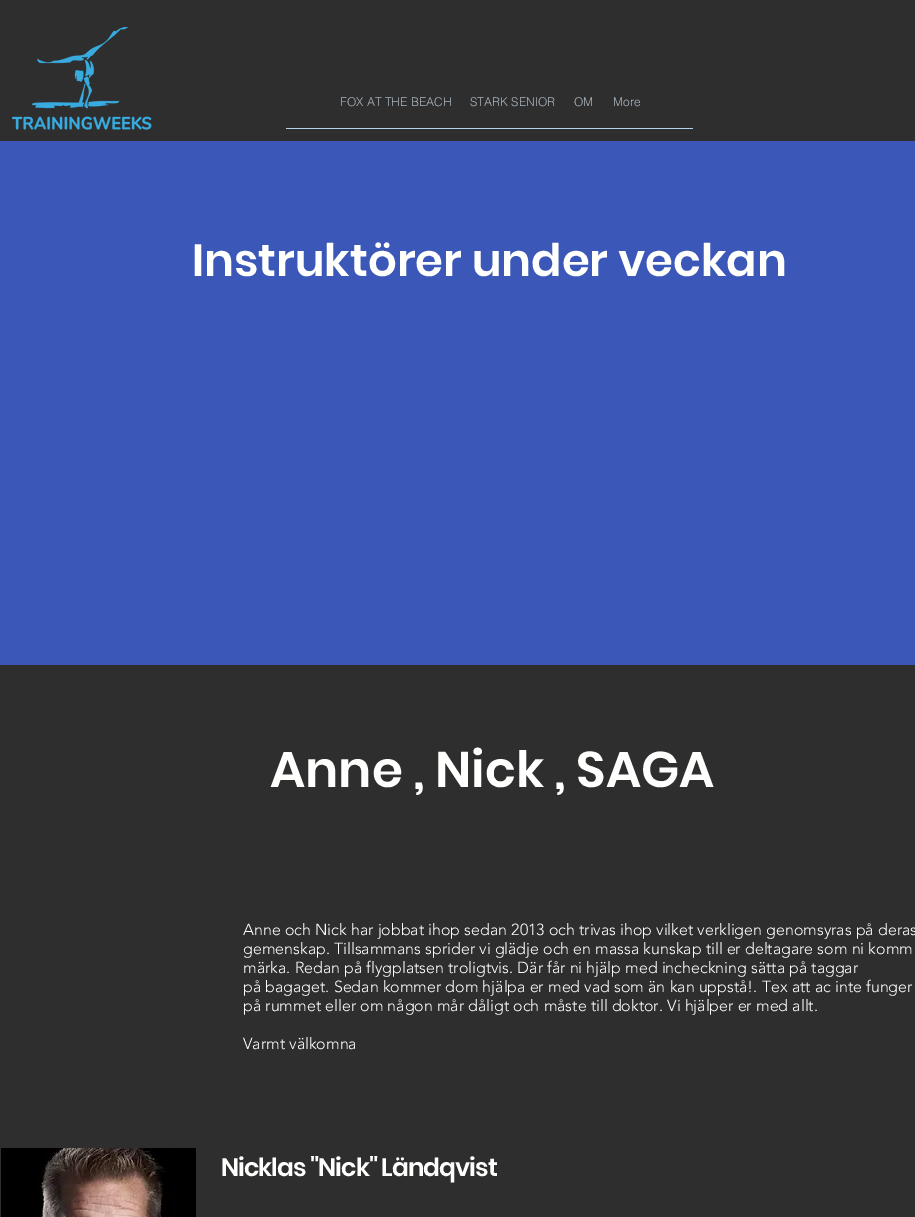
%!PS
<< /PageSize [915 1217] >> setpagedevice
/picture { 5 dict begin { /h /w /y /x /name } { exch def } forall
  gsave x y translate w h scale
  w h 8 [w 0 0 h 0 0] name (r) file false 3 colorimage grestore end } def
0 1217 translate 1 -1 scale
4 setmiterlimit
0.231 0.345 0.722 setrgbcolor
0 0 915 1217 rectfill
0.184 0.18 0.18 setrgbcolor
0 0 915 141 rectfill
(img1.rgb) 12 27 140 103 picture
/helvetica-Light [12 0 0 -12 0 0] selectfont
0.678 0.729 0.761 setrgbcolor
340 106 moveto (FOX AT THE BEACH) show
470 106 moveto (STARK SENIOR) show
574 106 moveto (OM) show
613 106 moveto (More) show
0.694 0.831 0.925 setrgbcolor
286 128 407 1 rectfill
/Poppins-SemiBold [45 0 0 -45 0 0] selectfont
1 1 0.996 setrgbcolor
192 276 moveto (Instruktörer under veckan) show
0.184 0.18 0.18 setrgbcolor
0 665 915 552 rectfill
/Poppins-SemiBold [50 0 0 -50 0 0] selectfont
1 1 0.996 setrgbcolor
270 787 moveto (Anne , Nick , SAGA) show
/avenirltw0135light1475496-Light [16 0 0 -16 0 0] selectfont
243 935 moveto (Anne och Nick har jobbat ihop sedan 2013 och trivas ihop vilket verkligen genomsyras på deras) show
243 954 moveto (gemenskap. Tillsammans sprider vi glädje och en massa kunskap till er deltagare som ni komm) show
243 973 moveto (märka. Redan på flygplatsen troligtvis. Där får ni hjälp med incheckning sätta på taggar) show
243 992 moveto (på bagaget. Sedan kommer dom hjälpa er med vad som än kan uppstå!. Tex att ac inte funger) show
243 1011 moveto (på rummet eller om någon mår dåligt och måste till doktor. Vi hjälper er med allt.) show
243 1049 moveto (Varmt välkomna) show
(img2.rgb) 1 1148 195 69 picture
/Poppins-SemiBold [25 0 0 -25 0 0] selectfont
221 1176 moveto -1 0 (Nicklas "Nick" Ländqvist) ashow
showpage
